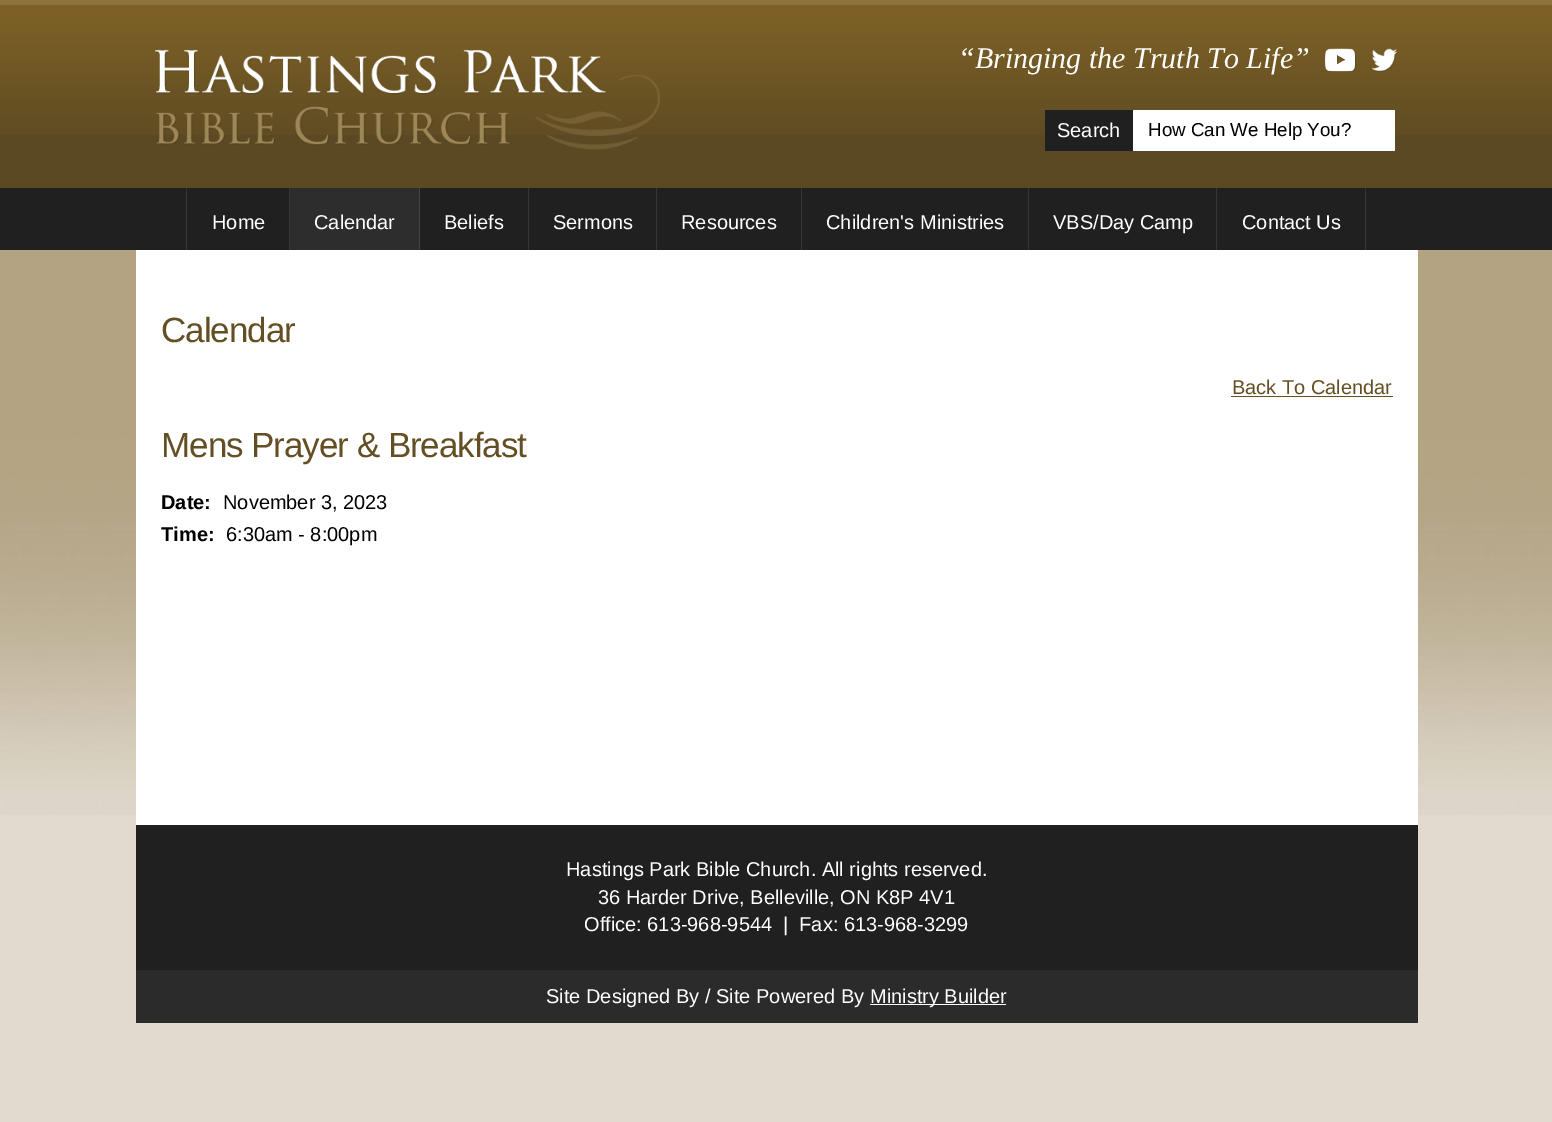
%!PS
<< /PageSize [1552 1122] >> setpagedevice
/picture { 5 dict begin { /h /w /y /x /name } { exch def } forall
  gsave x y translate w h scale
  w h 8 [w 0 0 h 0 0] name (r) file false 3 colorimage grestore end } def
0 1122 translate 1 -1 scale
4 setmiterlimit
0.882 0.859 0.812 setrgbcolor
0 0 1552 1122 rectfill
0.357 0.286 0.137 setrgbcolor
0 135 1552 53 rectfill
(img1.rgb) 0 0 1552 135 picture
(img2.rgb) 155 50 505 100 picture
/LiberationSerif-Italic [30 0 0 -30 0 0] selectfont
1 setgray
958 68 moveto (“Bringing the Truth To Life”) show
(img3.rgb) 1325 48 31 24 picture
(img4.rgb) 1372 48 26 24 picture
1133 110 262 41 rectfill
0.125 setgray
1045 110 88 41 rectfill
/LiberationSans-Regular [20 0 0 -20 0 0] selectfont
1 setgray
1057 137 moveto (Search) show
/LiberationSans-Regular [18.75 0 0 -18.75 0 0] selectfont
0 setgray
1148 136 moveto (How Can We Help You?) show
0.125 setgray
0 188 1552 62 rectfill
0.212 setgray
186 188 1 62 rectfill
289 188 1 62 rectfill
/LiberationSans-Regular [20 0 0 -20 0 0] selectfont
1 setgray
212 229 moveto (Home) show
0.176 setgray
290 188 129 62 rectfill
0.259 setgray
419 188 1 62 rectfill
1 setgray
314 229 moveto (Calendar) show
0.212 setgray
528 188 1 62 rectfill
1 setgray
444 229 moveto (Beliefs) show
0.212 setgray
656 188 1 62 rectfill
1 setgray
553 229 moveto (Sermons) show
0.212 setgray
801 188 1 62 rectfill
1 setgray
681 229 moveto (Resources) show
0.212 setgray
1028 188 1 62 rectfill
1 setgray
826 229 moveto (Children's Ministries) show
0.212 setgray
1216 188 1 62 rectfill
1 setgray
1053 229 moveto (VBS/Day Camp) show
0.212 setgray
1365 188 1 62 rectfill
1 setgray
1242 229 moveto (Contact Us) show
(img5.rgb) 0 250 1552 565 picture
136 250 1282 575 rectfill
/LiberationSans-Regular [35 0 0 -35 0 0] selectfont
0.392 0.31 0.141 setrgbcolor
161 342 moveto -1.05 0 (Calendar) ashow
/LiberationSans-Regular [20 0 0 -20 0 0] selectfont
1232 394 moveto (Back To Calendar) show
1231 396 162 1 rectfill
/LiberationSans-Regular [35 0 0 -35 0 0] selectfont
161 457 moveto -1.05 0 (Mens Prayer & Breakfast) ashow
/LiberationSans-Bold [20 0 0 -20 0 0] selectfont
0 setgray
161 509 moveto (Date:) show
/LiberationSans-Regular [20 0 0 -20 0 0] selectfont
223 509 moveto (November 3, 2023) show
/LiberationSans-Bold [20 0 0 -20 0 0] selectfont
161 541 moveto (Time:) show
/LiberationSans-Regular [20 0 0 -20 0 0] selectfont
226 541 moveto (6:30am - 8:00pm) show
0.125 setgray
136 825 1282 145 rectfill
1 setgray
566 876 moveto (Hastings Park Bible Church. All rights reserved.) show
598 904 moveto (36 Harder Drive, Belleville, ON K8P 4V1) show
584 931 moveto (Office: 613-968-9544  |  Fax: 613-968-3299) show
0.169 setgray
136 970 1282 53 rectfill
1 setgray
546 1003 moveto (Site Designed By / Site Powered By) show
870 1004 136 1 rectfill
870 1003 moveto (Ministry Builder) show
showpage
